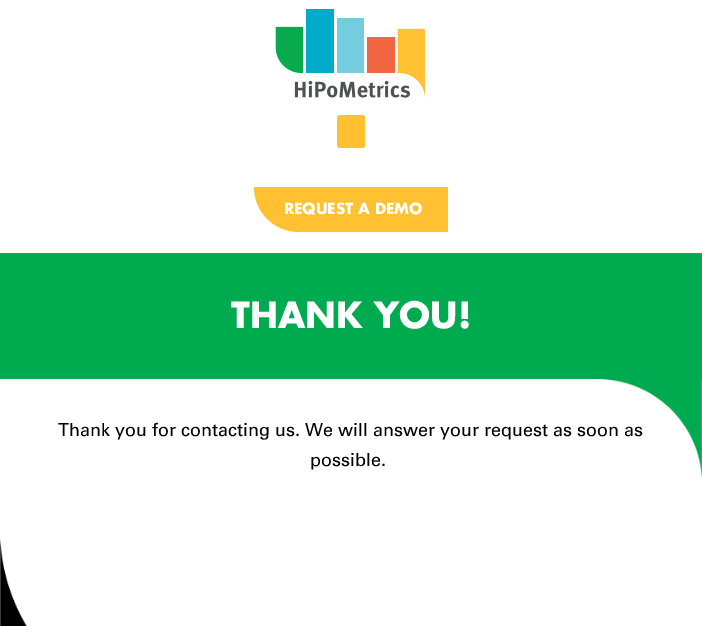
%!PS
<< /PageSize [702 626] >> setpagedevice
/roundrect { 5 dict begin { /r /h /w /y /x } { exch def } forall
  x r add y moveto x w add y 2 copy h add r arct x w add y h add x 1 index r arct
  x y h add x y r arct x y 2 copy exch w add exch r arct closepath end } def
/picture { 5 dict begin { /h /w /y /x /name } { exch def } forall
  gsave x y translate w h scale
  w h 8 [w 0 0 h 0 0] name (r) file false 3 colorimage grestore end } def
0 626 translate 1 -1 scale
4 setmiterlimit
1 setgray
0 0 702 626 rectfill
(img1.rgb) 275 9 150 89 picture
1 0.757 0.196 setrgbcolor
337 115 28 33 3 roundrect fill
newpath 254 187 moveto 448 187 lineto 448 232 lineto 299 232 lineto 274 232 254 212 254 187 curveto closepath fill
/Futura-Bold [15 0 0 -15 0 0] selectfont
1 setgray
284 214 moveto (REQUEST A DEMO) show
0 0.667 0.306 setrgbcolor
0 253 702 126 rectfill
/Futura-Bold [35 0 0 -35 0 0] selectfont
1 setgray
231 328 moveto (THANK YOU!) show
(img2.rgb) 597 379 105 99 picture
/Univers-Regular [18 0 0 -18 0 0] selectfont
0 setgray
58 436 moveto (Thank you for contacting us. We will answer your request as soon as) show
310 466 moveto (possible.) show
(img3.rgb) 0 539 27 87 picture
showpage
